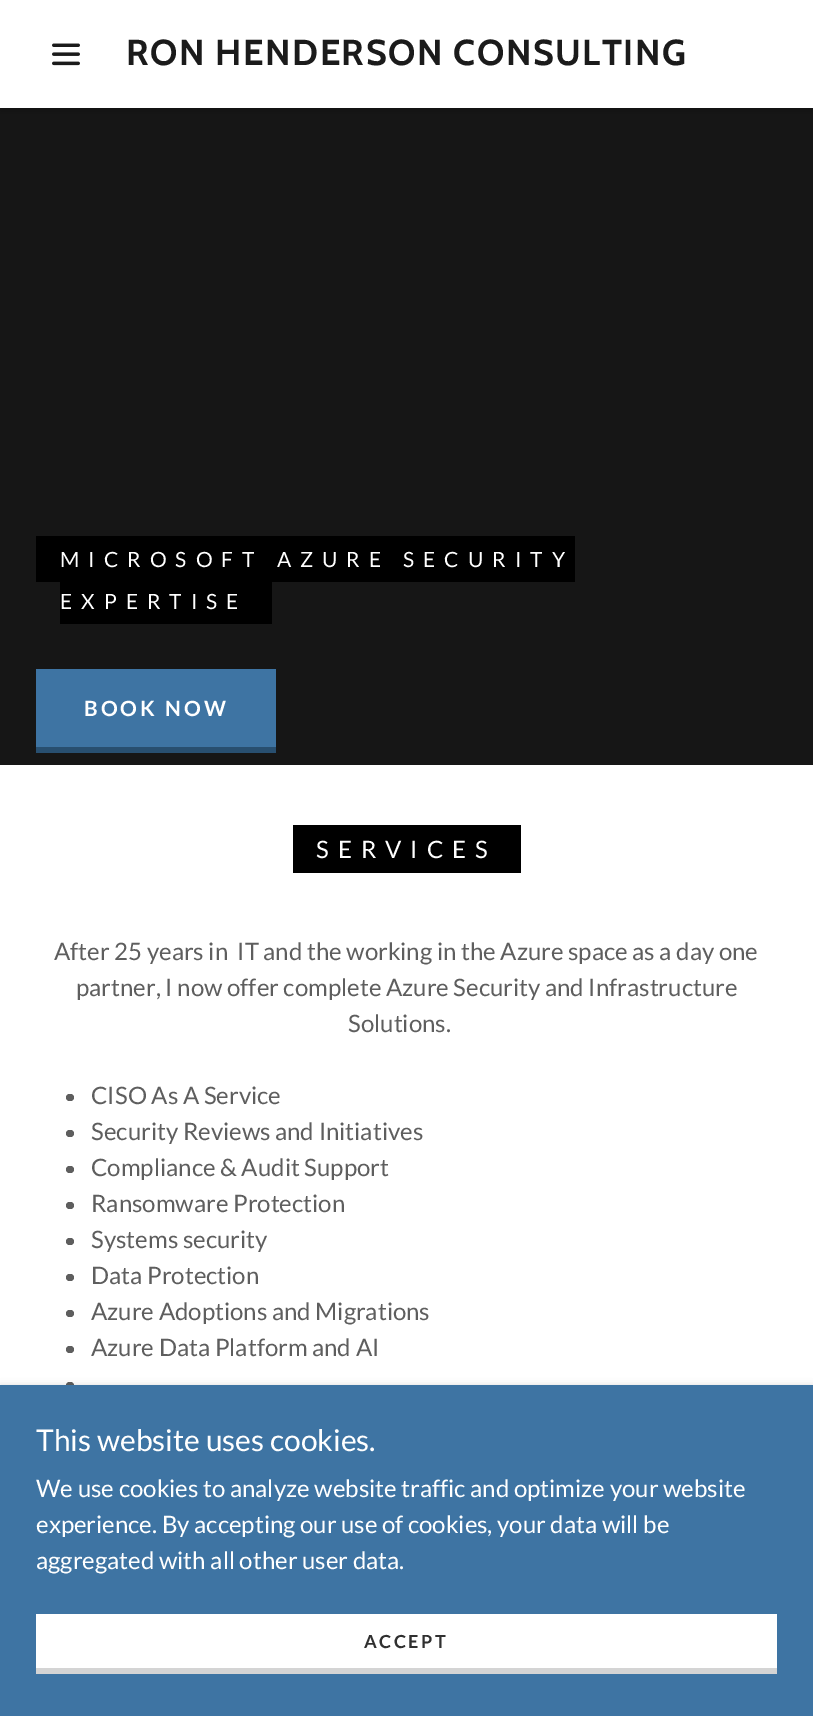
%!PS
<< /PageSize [813 1716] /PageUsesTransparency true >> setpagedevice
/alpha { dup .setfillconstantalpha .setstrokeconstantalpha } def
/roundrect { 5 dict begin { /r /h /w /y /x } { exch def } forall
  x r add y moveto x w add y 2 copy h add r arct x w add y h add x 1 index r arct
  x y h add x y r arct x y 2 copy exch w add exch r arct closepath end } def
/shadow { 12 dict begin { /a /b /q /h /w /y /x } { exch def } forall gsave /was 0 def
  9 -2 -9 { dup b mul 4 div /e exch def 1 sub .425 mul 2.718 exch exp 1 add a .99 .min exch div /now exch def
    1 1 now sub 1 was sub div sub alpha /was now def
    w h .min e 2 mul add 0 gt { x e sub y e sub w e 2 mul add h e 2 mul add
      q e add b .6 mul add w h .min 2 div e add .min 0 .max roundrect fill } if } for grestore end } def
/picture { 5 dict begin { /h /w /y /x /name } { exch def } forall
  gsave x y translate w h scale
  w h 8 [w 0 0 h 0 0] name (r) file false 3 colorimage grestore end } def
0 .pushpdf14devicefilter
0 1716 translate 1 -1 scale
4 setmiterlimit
1 setgray
0 0 813 1716 rectfill
0.086 setgray
0 108 813 657 rectfill
0 setgray
0 3 813 108 0 4.5 0.2 shadow
1 setgray
0 0 813 108 rectfill
(img1.rgb) 52 43 28 23 picture
/Cabin-Bold [36 0 0 -36 0 0] selectfont
0.106 setgray
126 65 moveto 1.5 0 (RON HENDERSON CONSULTING) ashow
0 setgray
36 536 539 46 rectfill
/Lato-Regular [21 0 0 -21 0 0] selectfont
1 setgray
60 567 moveto 9 0 (MICROSOFT AZURE SECURITY) ashow
0 setgray
60 582 212 42 rectfill
1 setgray
60 609 moveto 9 0 (EXPERTISE) ashow
0.243 0.455 0.639 setrgbcolor
36 669 240 78 rectfill
0.157 0.31 0.439 setrgbcolor
36 747 240 6 rectfill
/Lato-Bold [21 0 0 -21 0 0] selectfont
1 setgray
84 716 moveto 3 0 (BOOK NOW) ashow
0 setgray
293 825 228 48 rectfill
/Lato-Regular [24 0 0 -24 0 0] selectfont
1 setgray
316 858 moveto 9 0 (SERVICES) ashow
0.369 setgray
54 960 moveto (After 25 years in  IT and the working in the Azure space as a day one) show
76 996 moveto (partner, I now offer complete Azure Security and Infrastructure) show
348 1032 moveto (Solutions.) show
66 1094 8 7 3.5 roundrect fill
91 1104 moveto (CISO As A Service) show
66 1130 8 7 3.5 roundrect fill
91 1140 moveto (Security Reviews and Initiatives) show
66 1166 8 7 3.5 roundrect fill
91 1176 moveto (Compliance & Audit Support) show
66 1202 8 7 3.5 roundrect fill
91 1212 moveto (Ransomware Protection) show
66 1238 8 7 3.5 roundrect fill
91 1248 moveto (Systems security) show
66 1274 8 7 3.5 roundrect fill
91 1284 moveto (Data Protection) show
66 1310 8 7 3.5 roundrect fill
91 1320 moveto (Azure Adoptions and Migrations) show
66 1346 8 7 3.5 roundrect fill
91 1356 moveto (Azure Data Platform and AI) show
66 1382 8 7 3.5 roundrect fill
0 setgray
0 1388 813 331 0 4.5 0.3 shadow
0.243 0.455 0.639 setrgbcolor
0 1385 813 331 rectfill
/Lato-Regular [30 0 0 -30 0 0] selectfont
1 setgray
36 1451 moveto (This website uses cookies.) show
/Lato-Regular [24 0 0 -24 0 0] selectfont
36 1497 moveto (We use cookies to analyze website traffic and optimize your website) show
36 1533 moveto (experience. By accepting our use of cookies, your data will be) show
36 1569 moveto (aggregated with all other user data.) show
36 1614 741 54 rectfill
0.831 setgray
36 1668 741 6 rectfill
/Lato-Bold [18 0 0 -18 0 0] selectfont
0.188 setgray
364 1648 moveto 2.5 0 (ACCEPT) ashow
.poppdf14devicefilter showpage
